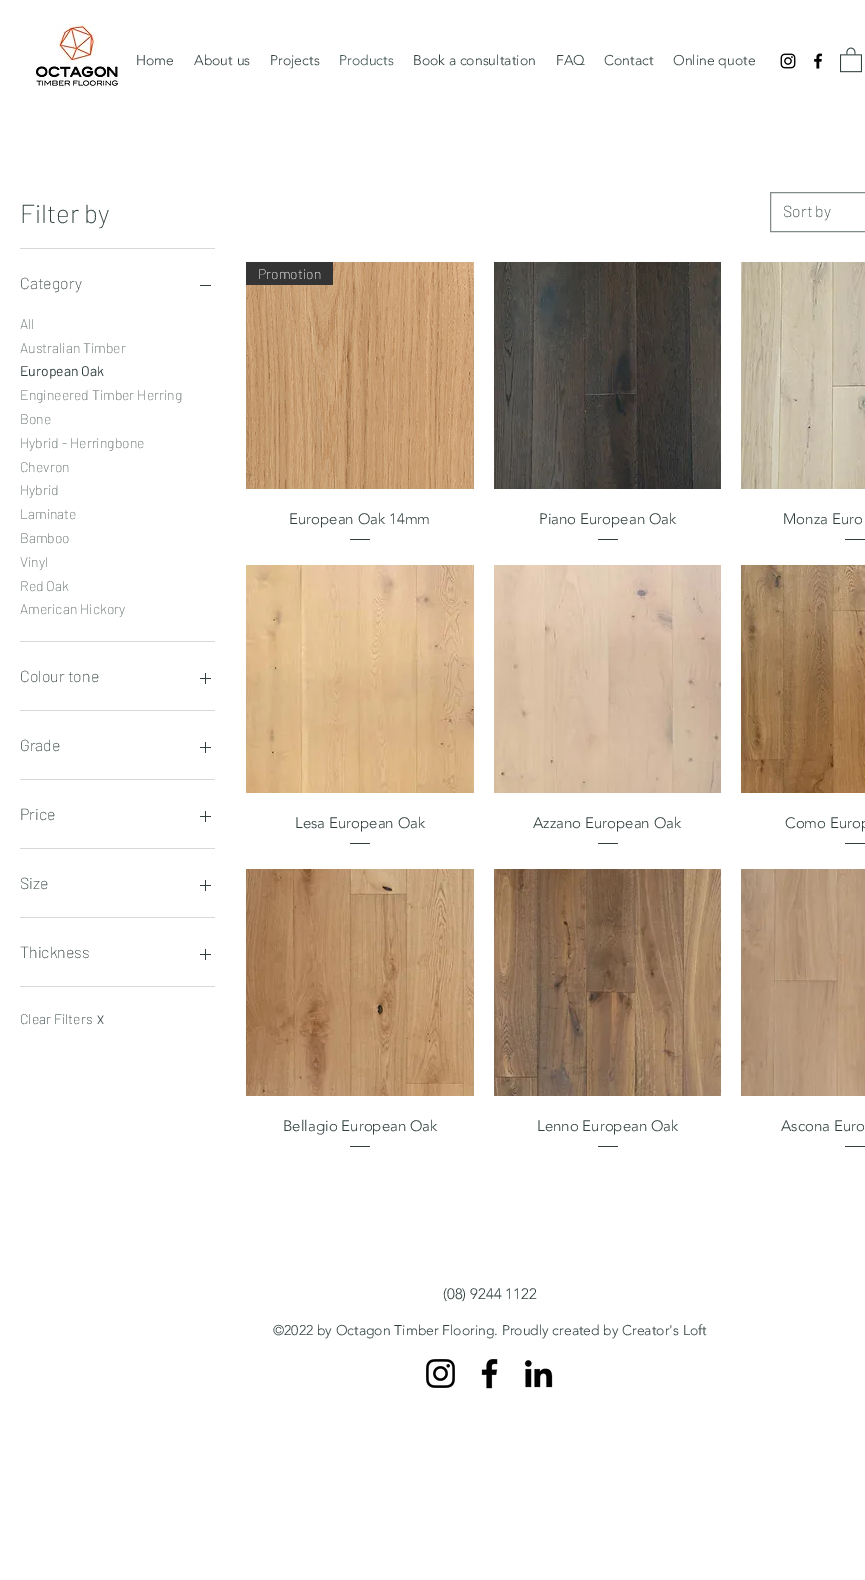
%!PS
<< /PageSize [865 1580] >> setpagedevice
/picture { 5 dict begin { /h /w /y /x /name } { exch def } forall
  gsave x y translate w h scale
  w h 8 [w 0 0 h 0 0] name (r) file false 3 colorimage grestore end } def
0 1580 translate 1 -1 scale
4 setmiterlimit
1 setgray
0 0 865 1580 rectfill
(img1.rgb) 34 23 84 65 picture
/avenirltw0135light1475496-Light [14 0 0 -14 0 0] selectfont
0.192 0.251 0.247 setrgbcolor
136 65 moveto (Home) show
194 65 moveto (About us) show
270 65 moveto (Projects) show
0.243 0.318 0.314 setrgbcolor
339 65 moveto (Products) show
0.192 0.251 0.247 setrgbcolor
413 65 moveto (Book a consultation) show
556 65 moveto (FAQ) show
604 65 moveto (Contact) show
673 65 moveto (Online quote) show
(img2.rgb) 780 53 16 16 picture
(img3.rgb) 814 53 9 16 picture
(img4.rgb) 840 47 22 26 picture
0.839 0.851 0.851 setrgbcolor
20 248 195 1 rectfill
/Barlow-ExtraLight [26 0 0 -26 0 0] selectfont
0.192 0.251 0.247 setrgbcolor
20 223 moveto (Filter by) show
0.839 0.851 0.851 setrgbcolor
20 641 195 1 rectfill
/Barlow-ExtraLight [16 0 0 -16 0 0] selectfont
0.192 0.251 0.247 setrgbcolor
20 289 moveto (Category) show
200 285 11 1 rectfill
/Barlow-ExtraLight [14 0 0 -14 0 0] selectfont
0.353 0.4 0.396 setrgbcolor
20 329 moveto (All) show
20 353 moveto (Australian Timber) show
/Barlow-Regular [14 0 0 -14 0 0] selectfont
0.192 0.251 0.247 setrgbcolor
20 376 moveto (European Oak) show
/Barlow-ExtraLight [14 0 0 -14 0 0] selectfont
0.353 0.4 0.396 setrgbcolor
20 400 moveto (Engineered Timber Herring) show
20 424 moveto (Bone) show
20 448 moveto (Hybrid - Herringbone) show
20 472 moveto (Chevron) show
20 495 moveto (Hybrid) show
20 519 moveto (Laminate) show
20 543 moveto (Bamboo) show
20 567 moveto (Vinyl) show
20 591 moveto (Red Oak) show
20 614 moveto (American Hickory) show
0.839 0.851 0.851 setrgbcolor
20 710 195 1 rectfill
/Barlow-ExtraLight [16 0 0 -16 0 0] selectfont
0.192 0.251 0.247 setrgbcolor
20 682 moveto (Colour tone) show
(img5.rgb) 200 673 11 11 picture
0.839 0.851 0.851 setrgbcolor
20 779 195 1 rectfill
0.192 0.251 0.247 setrgbcolor
20 751 moveto (Grade) show
(img5.rgb) 200 742 11 11 picture
0.839 0.851 0.851 setrgbcolor
20 848 195 1 rectfill
0.192 0.251 0.247 setrgbcolor
20 820 moveto (Price) show
(img5.rgb) 200 811 11 11 picture
0.839 0.851 0.851 setrgbcolor
20 917 195 1 rectfill
0.192 0.251 0.247 setrgbcolor
20 889 moveto (Size) show
(img5.rgb) 200 880 11 11 picture
0.839 0.851 0.851 setrgbcolor
20 986 195 1 rectfill
0.192 0.251 0.247 setrgbcolor
20 958 moveto (Thickness) show
(img5.rgb) 200 949 11 11 picture
/Barlow-ExtraLight [14 0 0 -14 0 0] selectfont
20 1024 moveto (Clear Filters) show
/Barlow-Regular [12 0 0 -12 0 0] selectfont
97 1024 moveto (X) show
0.514 0.549 0.549 setrgbcolor
770.5 192.5 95 39 rectstroke
/Barlow-ExtraLight [16 0 0 -16 0 0] selectfont
0.192 0.251 0.247 setrgbcolor
783 217 moveto (Sort by) show
(img6.rgb) 246 262 228 227 picture
0.204 setgray
246 262 87 23 rectfill
/Barlow-ExtraLight [14 0 0 -14 0 0] selectfont
1 setgray
258 279 moveto (Promotion) show
/avenirltw0135light1475496-Light [15 0 0 -15 0 0] selectfont
0.192 0.251 0.247 setrgbcolor
289 524 moveto (European Oak 14mm) show
350 539 20 1 rectfill
(img7.rgb) 494 262 227 227 picture
539 524 moveto (Piano European Oak) show
598 539 20 1 rectfill
(img8.rgb) 741 262 124 227 picture
783 524 moveto (Monza Euro) show
845 539 20 1 rectfill
(img9.rgb) 246 565 228 228 picture
295 828 moveto (Lesa European Oak) show
350 843 20 1 rectfill
(img10.rgb) 494 565 227 228 picture
533 828 moveto (Azzano European Oak) show
598 843 20 1 rectfill
(img11.rgb) 741 565 124 228 picture
785 828 moveto (Como Europ) show
845 843 20 1 rectfill
(img12.rgb) 246 869 228 227 picture
283 1131 moveto (Bellagio European Oak) show
350 1146 20 1 rectfill
(img13.rgb) 494 869 227 227 picture
537 1131 moveto (Lenno European Oak) show
598 1146 20 1 rectfill
(img14.rgb) 741 869 124 227 picture
781 1131 moveto (Ascona Euro) show
845 1146 20 1 rectfill
443 1299 moveto (\(08\) 9244 1122) show
/avenirltw0135light1475496-Light [14 0 0 -14 0 0] selectfont
273 1335 moveto (©2022 by Octagon Timber Flooring. Proudly created by Creator's Loft) show
(img15.rgb) 426 1359 29 29 picture
(img16.rgb) 481 1359 17 30 picture
(img17.rgb) 524 1360 29 28 picture
showpage
